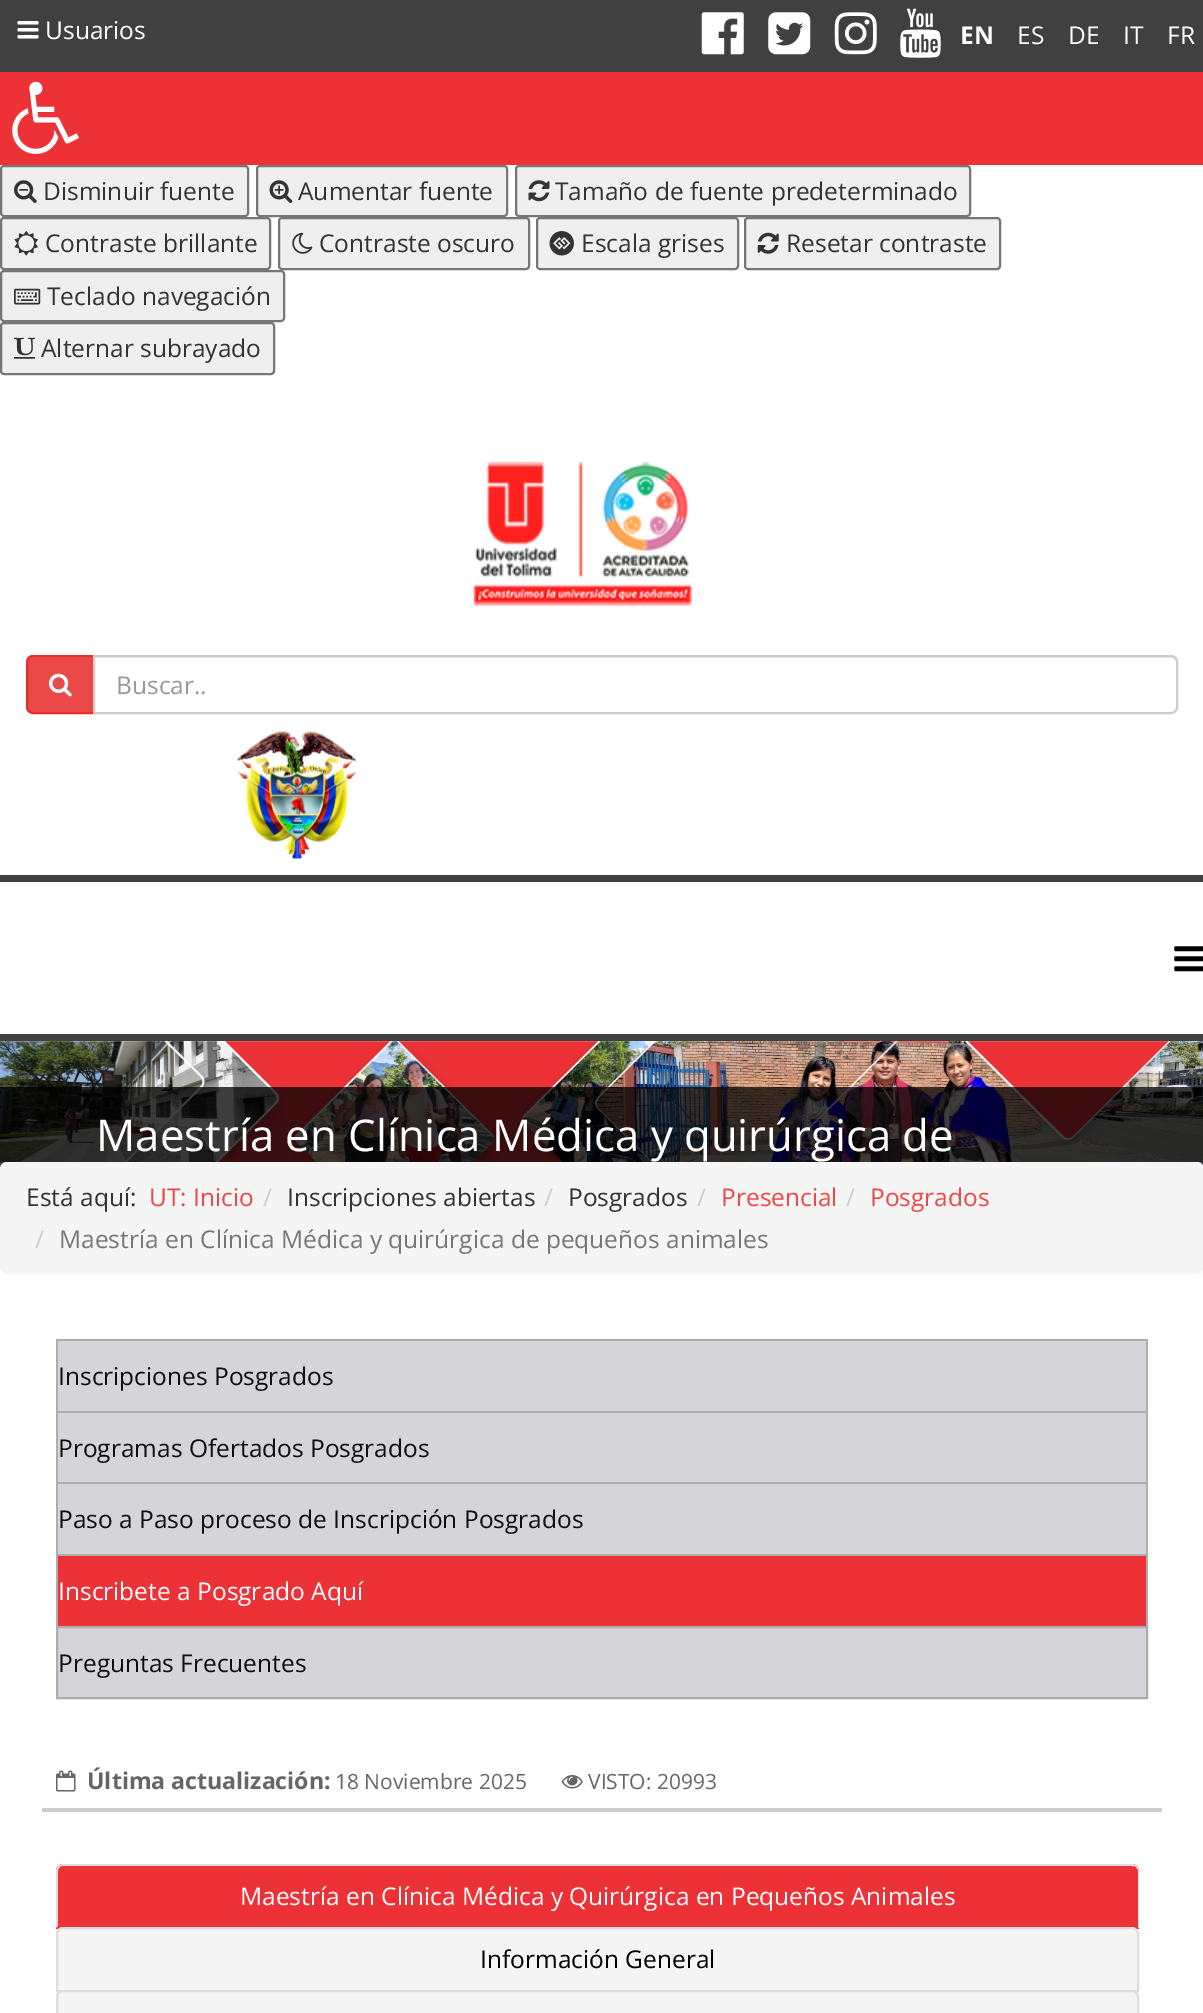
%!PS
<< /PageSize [1203 2013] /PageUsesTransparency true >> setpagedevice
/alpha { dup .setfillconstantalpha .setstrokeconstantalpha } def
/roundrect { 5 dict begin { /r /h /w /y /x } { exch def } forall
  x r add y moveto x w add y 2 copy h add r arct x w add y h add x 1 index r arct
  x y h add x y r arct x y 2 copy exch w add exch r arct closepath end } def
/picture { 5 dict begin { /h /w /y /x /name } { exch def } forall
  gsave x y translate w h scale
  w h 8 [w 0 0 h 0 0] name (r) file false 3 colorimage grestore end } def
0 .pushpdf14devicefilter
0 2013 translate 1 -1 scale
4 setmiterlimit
1 setgray
0 0 1203 2013 rectfill
0.251 setgray
0 0 1203 72 rectfill
(img1.rgb) 17 21 22 18 picture
/OpenSans-Regular [24.5 0 0 -24.5 0 0] selectfont
1 setgray
45 39 moveto (Usuarios) show
(img2.rgb) 701 12 43 43 picture
(img3.rgb) 768 12 43 43 picture
(img4.rgb) 834 12 43 43 picture
(img5.rgb) 900 8 41 50 picture
/OpenSans-Bold [24.5 0 0 -24.5 0 0] selectfont
960 44 moveto (EN) show
/OpenSans-Regular [24.5 0 0 -24.5 0 0] selectfont
1017 44 moveto (ES) show
1068 44 moveto (DE) show
1123 44 moveto (IT) show
1167 44 moveto (FR) show
0.929 0.196 0.216 setrgbcolor
0 72 1203 93 rectfill
(img6.rgb) 12 81 67 73 picture
0.937 setgray
1 166 247 50 3 roundrect gsave fill grestore
0.463 setgray
2 setlinewidth
stroke
(img7.rgb) 14 180 23 23 picture
0.2 setgray
43 200 moveto (Disminuir fuente) show
0.937 setgray
257 166 250 50 3 roundrect gsave fill grestore
0.463 setgray
stroke
(img8.rgb) 269 180 24 23 picture
0.2 setgray
298 200 moveto (Aumentar fuente) show
0.937 setgray
516 166 454 50 3 roundrect gsave fill grestore
0.463 setgray
stroke
(img9.rgb) 528 180 22 22 picture
0.2 setgray
555 200 moveto (Tamaño de fuente predeterminado) show
0.937 setgray
1 218 269 51 3 roundrect gsave fill grestore
0.463 setgray
stroke
(img10.rgb) 14 231 24 25 picture
0.2 setgray
45 252 moveto (Contraste brillante) show
0.937 setgray
279 218 250 51 3 roundrect gsave fill grestore
0.463 setgray
stroke
(img11.rgb) 292 232 21 22 picture
0.2 setgray
319 252 moveto (Contraste oscuro) show
0.937 setgray
537 218 201 51 3 roundrect gsave fill grestore
0.463 setgray
stroke
(img12.rgb) 549 231 25 25 picture
0.2 setgray
581 252 moveto (Escala grises) show
0.937 setgray
745 218 255 51 3 roundrect gsave fill grestore
0.463 setgray
stroke
(img13.rgb) 757 232 22 22 picture
0.2 setgray
786 252 moveto (Resetar contraste) show
0.937 setgray
1 271 283 50 3 roundrect gsave fill grestore
0.463 setgray
stroke
(img14.rgb) 14 288 27 17 picture
0.2 setgray
47 305 moveto (Teclado navegación) show
0.937 setgray
1 323 273 51 3 roundrect gsave fill grestore
0.463 setgray
stroke
(img15.rgb) 14 337 21 22 picture
0.2 setgray
41 357 moveto (Alternar subrayado) show
(img16.rgb) 473 462 220 144 picture
0.922 0.286 0.278 setrgbcolor
newpath 33 656 moveto 94 656 lineto 94 713 lineto 33 713 lineto 29.5 713 27 710.5 27 707 curveto 27 662 lineto 27 658.5 29.5 656 33 656 curveto closepath gsave fill grestore
0.91 0.18 0.169 setrgbcolor
stroke
(img17.rgb) 49 673 23 24 picture
1 setgray
newpath 93 655 moveto 1171 655 lineto 1175 655 1178 658 1178 662 curveto 1178 707 lineto 1178 711 1175 714 1171 714 curveto 93 714 lineto closepath fill
0.925 setgray
newpath 95 656 moveto 95 658 lineto 1171 658 lineto 1174 658 1176 660 1176 663 curveto 1176 660 1175 656 1171 656 curveto closepath fill
0.8 setgray
newpath 94 656 moveto 1171 656 lineto 1174.5 656 1177 658.5 1177 662 curveto 1177 707 lineto 1177 710.5 1174.5 713 1171 713 curveto 94 713 lineto closepath stroke
0.6 setgray
116 694 moveto (Buscar..) show
(img18.rgb) 237 730 120 129 picture
0.251 setgray
0 875 1203 7 rectfill
0 1034 1203 7 rectfill
(img19.rgb) 1174 946 29 26 picture
(img20.rgb) 0 1041 1203 121 picture
0.75 alpha
0 setgray
0 1087 1203 82 rectfill
/OpenSans-Regular [43.75 0 0 -43.75 0 0] selectfont
1 alpha
1 setgray
96 1151 moveto (Maestría en Clínica Médica y quirúrgica de) show
0.961 setgray
0 1162 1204 112 7 roundrect fill
/OpenSans-Regular [24.5 0 0 -24.5 0 0] selectfont
0.2 setgray
26 1206 moveto (Está aquí:) show
0.922 0.286 0.278 setrgbcolor
149 1206 moveto (UT: Inicio) show
0.8 setgray
263 1206 moveto (/) show
0.2 setgray
287 1206 moveto (Inscripciones abiertas) show
0.8 setgray
544 1206 moveto (/) show
0.2 setgray
568 1206 moveto (Posgrados) show
0.8 setgray
697 1206 moveto (/) show
0.922 0.286 0.278 setrgbcolor
721 1206 moveto (Presencial) show
0.8 setgray
846 1206 moveto (/) show
0.922 0.286 0.278 setrgbcolor
870 1206 moveto (Posgrados) show
0.8 setgray
35 1248 moveto (/) show
0.467 setgray
59 1248 moveto (Maestría en Clínica Médica y quirúrgica de pequeños animales) show
0.835 0.831 0.851 setrgbcolor
58 1341 1088 70 rectfill
0.678 0.675 0.694 setrgbcolor
56 1339 1092 2 rectfill
1146 1339 2 72 rectfill
56 1339 2 72 rectfill
0.059 setgray
58 1385 moveto (Inscripciones Posgrados) show
0.835 0.831 0.851 setrgbcolor
58 1413 1088 69 rectfill
0.678 0.675 0.694 setrgbcolor
56 1411 1092 2 rectfill
1146 1411 2 71 rectfill
56 1411 2 71 rectfill
0.059 setgray
58 1457 moveto (Programas Ofertados Posgrados) show
0.835 0.831 0.851 setrgbcolor
58 1484 1088 70 rectfill
0.678 0.675 0.694 setrgbcolor
56 1482 1092 2 rectfill
1146 1482 2 72 rectfill
56 1482 2 72 rectfill
0.059 setgray
58 1528 moveto (Paso a Paso proceso de Inscripción Posgrados) show
0.929 0.196 0.216 setrgbcolor
58 1556 1088 70 rectfill
0.678 0.675 0.694 setrgbcolor
56 1554 1092 2 rectfill
1146 1554 2 72 rectfill
56 1554 2 72 rectfill
1 setgray
58 1600 moveto (Inscribete a Posgrado Aquí) show
0.835 0.831 0.851 setrgbcolor
newpath 57 1627 moveto 1147 1627 lineto 1147 1698 lineto 57 1698 lineto closepath gsave fill grestore
0.678 0.675 0.694 setrgbcolor
stroke
0.059 setgray
58 1672 moveto (Preguntas Frecuentes) show
0.8 setgray
42 1808 1120 4 rectfill
(img21.rgb) 56 1770 20 22 picture
/OpenSans-Bold [23.1 0 0 -23.1 0 0] selectfont
0.4 setgray
87 1789 moveto (Última actualización:) show
/OpenSans-Regular [21 0 0 -21 0 0] selectfont
335 1789 moveto (18 Noviembre 2025) show
(img22.rgb) 561 1775 22 14 picture
588 1789 moveto (VISTO: 20993) show
0.929 0.196 0.216 setrgbcolor
newpath 63 1864 moveto 1132 1864 lineto 1136 1864 1139 1867 1139 1871 curveto 1139 1929 lineto 56 1929 lineto 56 1871 lineto 56 1867 59 1864 63 1864 curveto closepath fill
0.867 setgray
newpath 63 1864 moveto 61 1864 59 1865 58 1866 curveto 60 1867 lineto 60 1866 62 1866 63 1866 curveto 1132 1866 lineto 1133 1866 1135 1866 1136 1867 curveto 1137 1866 lineto 1136 1865 1134 1864 1132 1864 curveto closepath fill
newpath 1138 1927 moveto 1139 1928 lineto 1139 1871 lineto 1139 1869 1138 1867 1137 1866 curveto 1136 1867 lineto 1138 1870 lineto closepath fill
newpath 56 1871 moveto 56 1928 lineto 58 1926 lineto 58 1871 lineto 58 1869 59 1868 60 1867 curveto 58 1866 lineto 57 1867 56 1869 56 1871 curveto closepath fill
/OpenSans-Regular [24.5 0 0 -24.5 0 0] selectfont
1 setgray
240 1905 moveto (Maestría en Clínica Médica y Quirúrgica en Pequeños Animales) show
0.961 setgray
newpath 63 1928 moveto 1132 1928 lineto 1135.5 1928 1138 1930.5 1138 1934 curveto 1138 1991 lineto 57 1991 lineto 57 1934 lineto 57 1930.5 59.5 1928 63 1928 curveto closepath gsave fill grestore
0.867 setgray
stroke
0 setgray
480 1968 moveto (Información General) show
0.961 setgray
newpath 63 1991 moveto 1132 1991 lineto 1135.5 1991 1138 1993.5 1138 1997 curveto 1138 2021 lineto 57 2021 lineto 57 1997 lineto 57 1993.5 59.5 1991 63 1991 curveto closepath gsave fill grestore
0.867 setgray
stroke
.poppdf14devicefilter showpage
